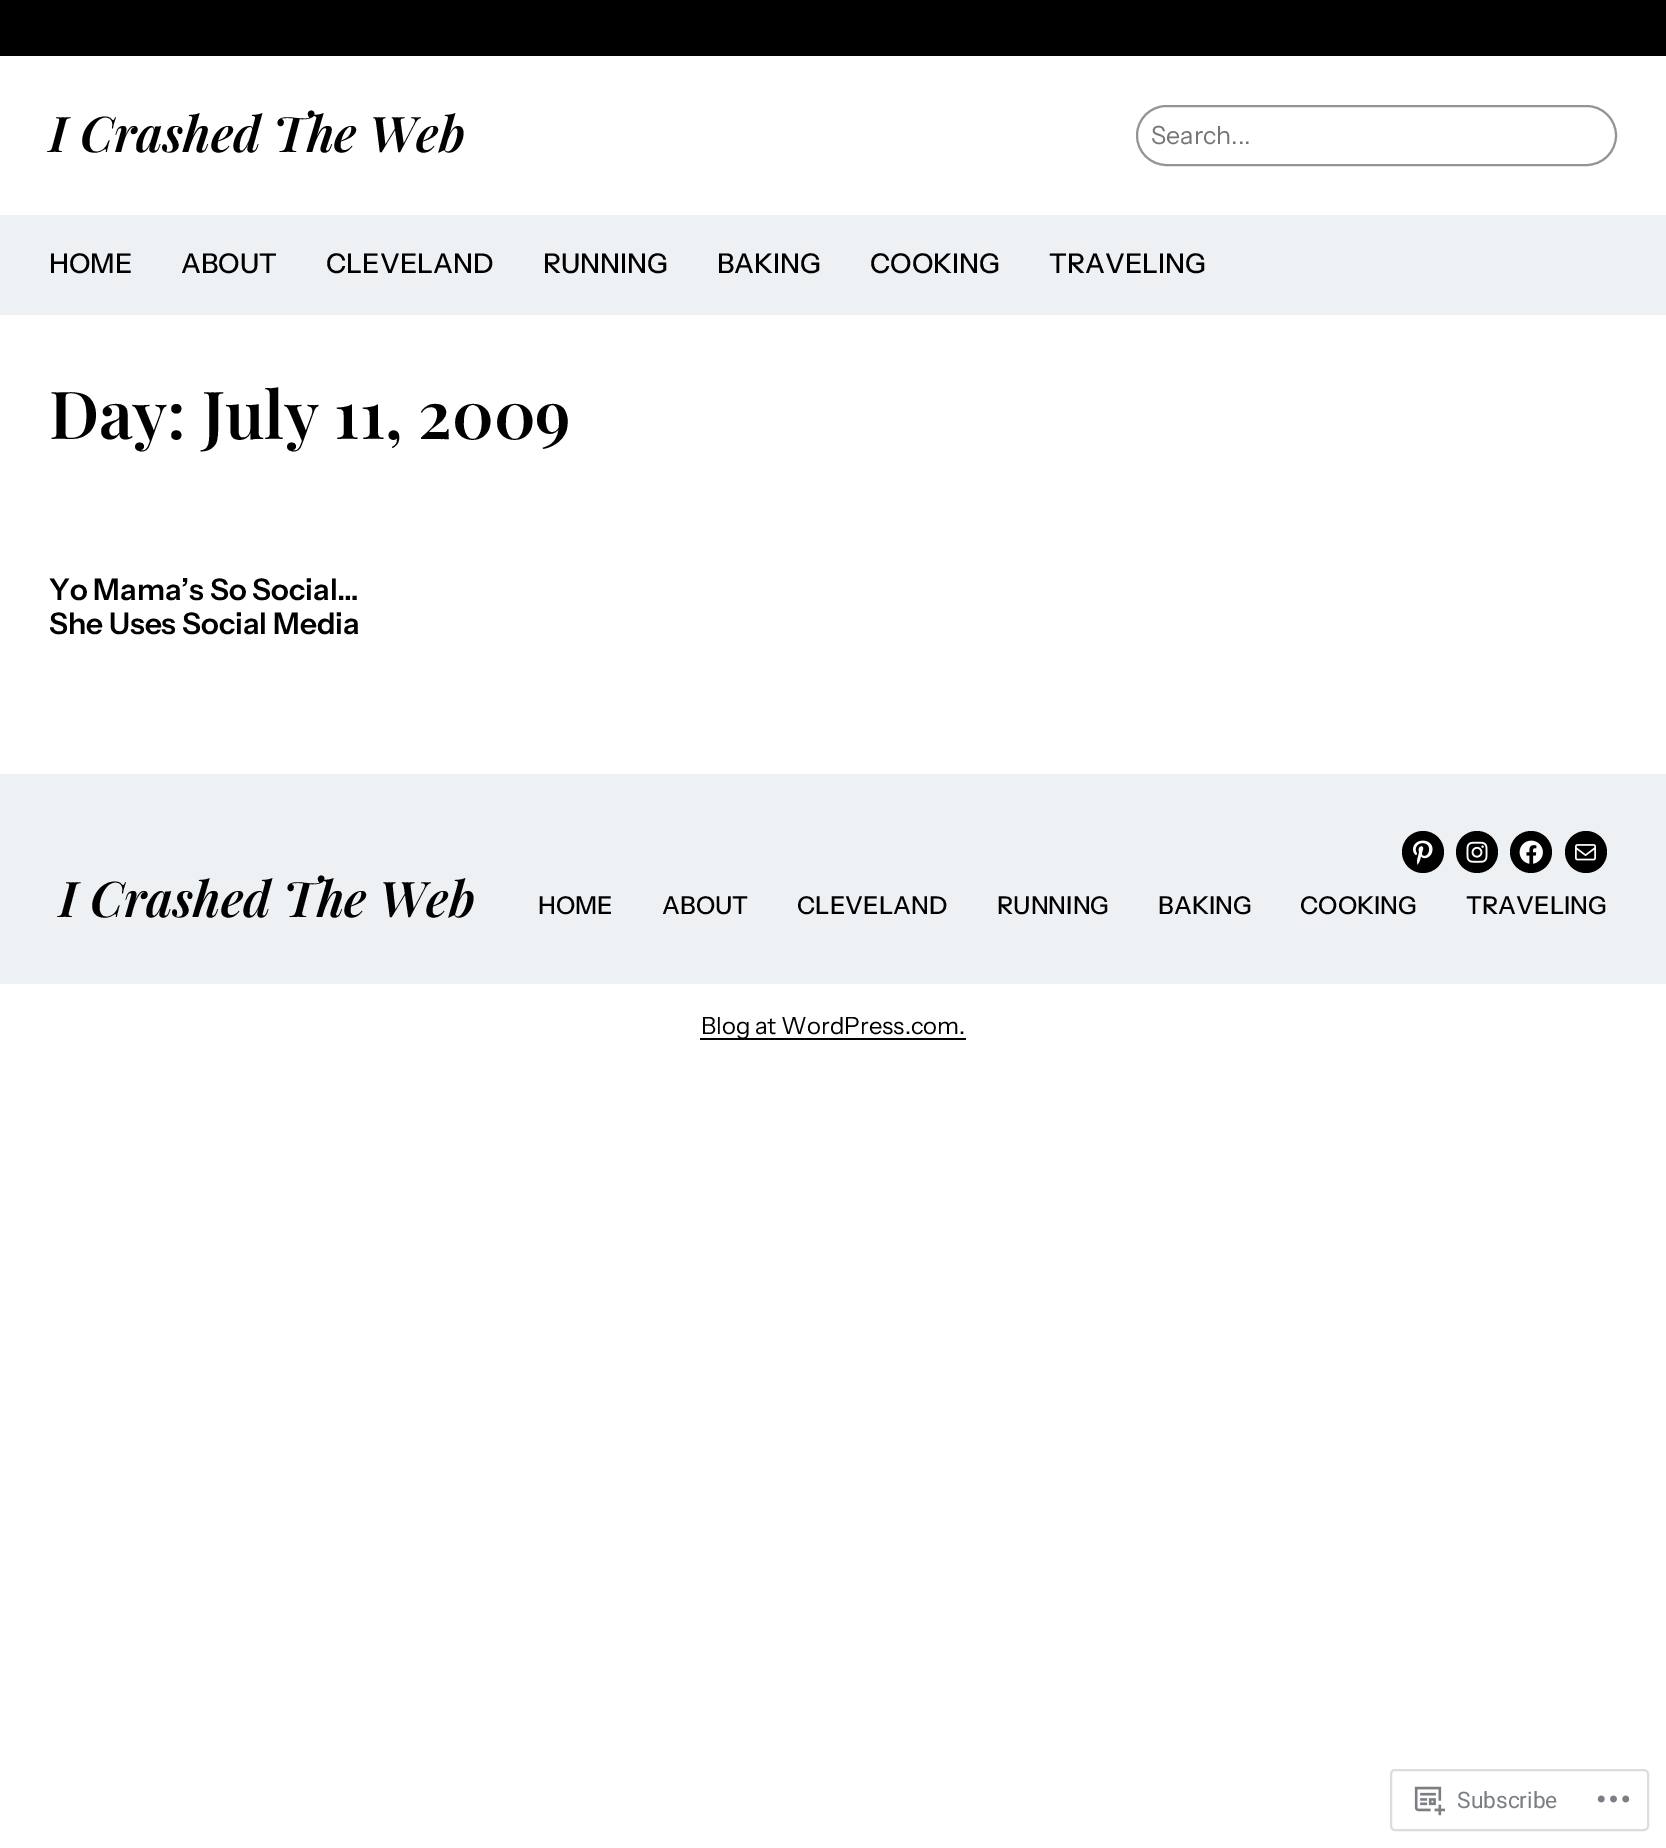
%!PS
<< /PageSize [1666 1848] >> setpagedevice
/roundrect { 5 dict begin { /r /h /w /y /x } { exch def } forall
  x r add y moveto x w add y 2 copy h add r arct x w add y h add x 1 index r arct
  x y h add x y r arct x y 2 copy exch w add exch r arct closepath end } def
/picture { 5 dict begin { /h /w /y /x /name } { exch def } forall
  gsave x y translate w h scale
  w h 8 [w 0 0 h 0 0] name (r) file false 3 colorimage grestore end } def
0 1848 translate 1 -1 scale
4 setmiterlimit
1 setgray
0 0 1666 1848 rectfill
0 setgray
0 0 1666 56 rectfill
/PlayfairDisplay-SemiBoldItalic [49.25 0 0 -49.25 0 0] selectfont
49 152 moveto (I Crashed The Web) show
0.58 setgray
2 setlinewidth
1137 106 479 59 29.5 roundrect stroke
/InstrumentSans-Regular [25 0 0 -25 0 0] selectfont
0.459 setgray
1151 144 moveto (Search...) show
0.929 0.945 0.957 setrgbcolor
0 215 1666 100 rectfill
/InstrumentSans-Medium [27.25 0 0 -27.25 0 0] selectfont
0 setgray
49 273 moveto (HOME) show
181 273 moveto (ABOUT) show
326 273 moveto (CLEVELAND) show
543 273 moveto (RUNNING) show
717 273 moveto (BAKING) show
870 273 moveto (COOKING) show
1049 273 moveto (TRAVELING) show
/PlayfairDisplay-SemiBold [66.25 0 0 -66.25 0 0] selectfont
49 439 moveto (Day: July 11, 2009) show
/InstrumentSans-SemiBold [29.75 0 0 -29.75 0 0] selectfont
49 600 moveto (Yo Mama’s So Social…) show
49 634 moveto (She Uses Social Media) show
0.929 0.945 0.957 setrgbcolor
0 774 1666 210 rectfill
/PlayfairDisplay-SemiBoldItalic [49.25 0 0 -49.25 0 0] selectfont
0 setgray
59 917 moveto (I Crashed The Web) show
newpath 1423 852 21 0 360 arc closepath fill
(img1.rgb) 1413 840 20 25 picture
newpath 1477 852 21 0 360 arc closepath fill
(img2.rgb) 1466 841 22 22 picture
newpath 1531 852 21 0 360 arc closepath fill
(img3.rgb) 1519 840 24 24 picture
newpath 1586 852 21 0 360 arc closepath fill
(img4.rgb) 1575 844 21 17 picture
/InstrumentSans-Medium [24.5 0 0 -24.5 0 0] selectfont
538 914 moveto (HOME) show
662 914 moveto (ABOUT) show
797 914 moveto (CLEVELAND) show
997 914 moveto (RUNNING) show
1158 914 moveto (BAKING) show
1300 914 moveto (COOKING) show
1466 914 moveto (TRAVELING) show
700 1038 266 2 rectfill
/InstrumentSans-Regular [23.75 0 0 -23.75 0 0] selectfont
701 1034 moveto (Blog at WordPress.com.) show
0.867 0.867 0.875 setrgbcolor
1391 1770 257 60 4 roundrect stroke
(img5.rgb) 1414 1786 32 30 picture
/Roboto-Regular [22.75 0 0 -22.75 0 0] selectfont
0.482 0.498 0.522 setrgbcolor
1457 1808 moveto (Subscribe) show
(img6.rgb) 1597 1795 33 8 picture
showpage
